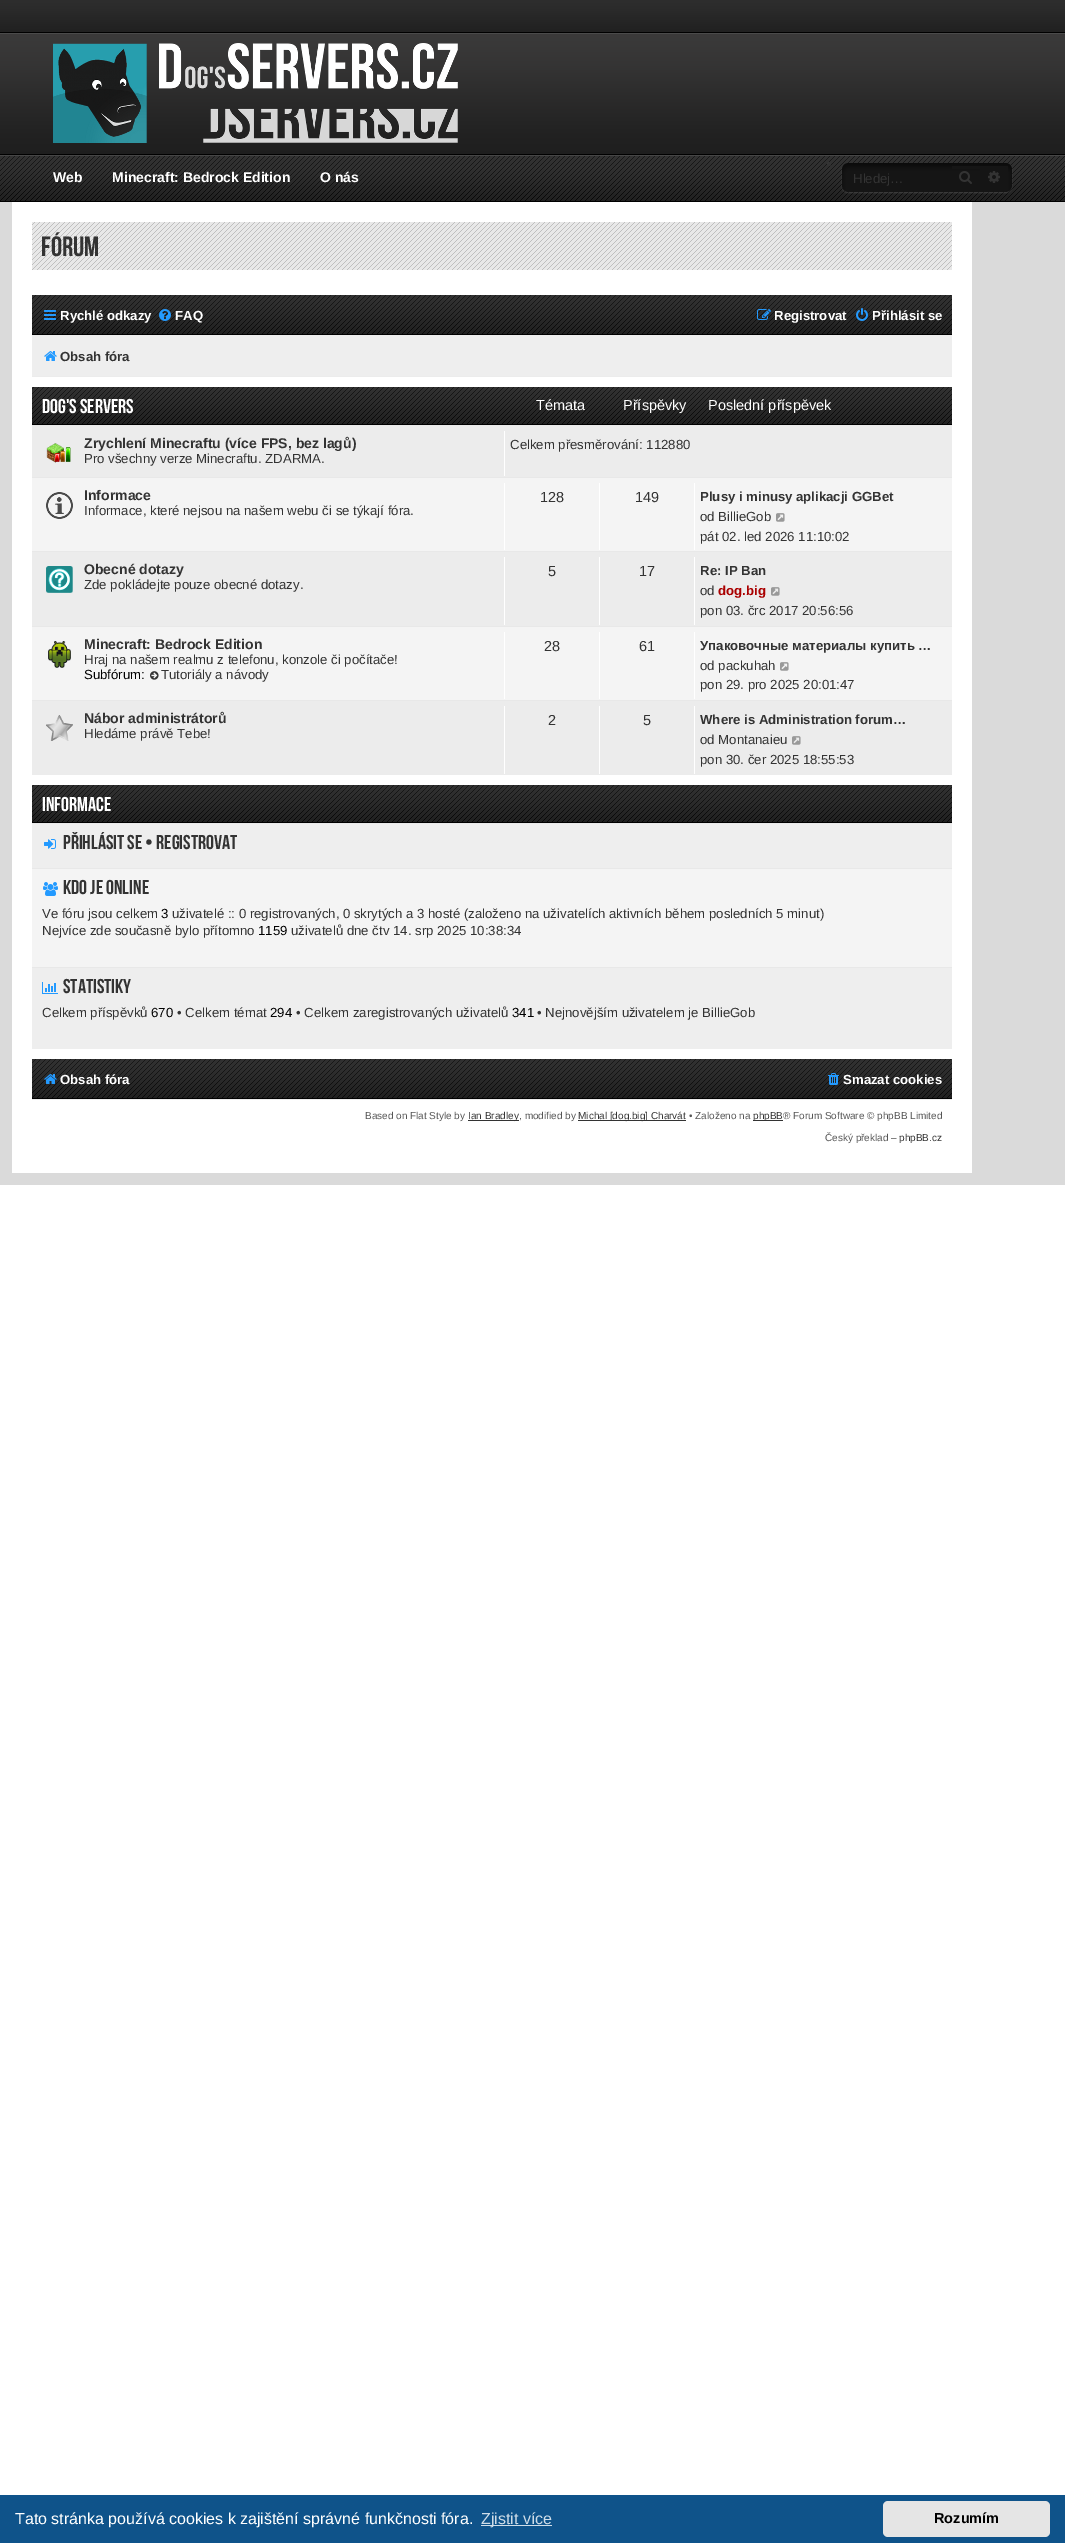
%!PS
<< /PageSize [1065 2543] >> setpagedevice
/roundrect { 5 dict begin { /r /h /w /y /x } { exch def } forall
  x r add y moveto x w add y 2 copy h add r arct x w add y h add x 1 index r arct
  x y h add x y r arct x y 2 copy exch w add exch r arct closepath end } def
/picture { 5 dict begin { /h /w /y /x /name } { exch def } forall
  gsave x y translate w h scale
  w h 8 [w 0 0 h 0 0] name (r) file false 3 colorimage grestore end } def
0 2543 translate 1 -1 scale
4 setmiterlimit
1 setgray
0 0 1065 2543 rectfill
0.855 setgray
0 202 1065 983 rectfill
(img1.rgb) 0 0 1065 202 picture
(img2.rgb) 53 43 405 100 picture
/LiberationSans-Bold [14 0 0 -14 0 0] selectfont
1 setgray
53 182 moveto (Web) show
112 182 moveto (Minecraft: Bedrock Edition) show
320 182 moveto (O nás) show
0.2 setgray
newpath 829 164 2 0 360 arc closepath fill
(img3.rgb) 841 163 172 31 picture
/LiberationSans-Regular [13.2 0 0 -13.2 0 0] selectfont
853 183 moveto (Hledej…) show
0.082 setgray
952 166 28 3 rectfill
(img4.rgb) 959 171 13 13 picture
980 166 28 19 rectfill
(img5.rgb) 988 171 12 12 picture
1 setgray
12 202 960 971 rectfill
(img6.rgb) 32 222 920 48 picture
/BebasNeue-Regular [28 0 0 -28 0 0] selectfont
0.2 setgray
41 256 moveto (FÓRUM) show
(img7.rgb) 32 295 920 40 picture
0.925 setgray
32 335 920 1 rectfill
(img8.rgb) 44 310 12 10 picture
/LiberationSans-Bold [13.2 0 0 -13.2 0 0] selectfont
1 setgray
60 320 moveto (Rychlé odkazy) show
(img9.rgb) 159 309 12 12 picture
175 320 moveto (FAQ) show
(img10.rgb) 757 309 14 11 picture
774 320 moveto (Registrovat) show
(img11.rgb) 856 308 12 13 picture
872 320 moveto (Přihlásit se) show
0.933 setgray
32 336 920 40 rectfill
0.925 setgray
32 376 920 1 rectfill
(img12.rgb) 44 351 13 10 picture
0.2 setgray
60 361 moveto (Obsah fóra) show
(img13.rgb) 32 387 920 38 picture
/BebasNeue-Regular [20 0 0 -20 0 0] selectfont
1 setgray
42 413 moveto (DOG'S SERVERS) show
/LiberationSans-Regular [14.5 0 0 -14.5 0 0] selectfont
536 410 moveto (Témata) show
623 410 moveto (Příspěvky) show
708 410 moveto (Poslední příspěvek) show
0.925 setgray
32 426 920 51 rectfill
0.91 setgray
32 425 920 1 rectfill
(img14.rgb) 46 443 25 20 picture
/LiberationSans-Bold [14 0 0 -14 0 0] selectfont
0.2 setgray
84 448 moveto (Zrychlení Minecraftu \(více FPS, bez lagů\)) show
/LiberationSans-Regular [13.2 0 0 -13.2 0 0] selectfont
84 463 moveto (Pro všechny verze Minecraftu. ZDARMA.) show
1 setgray
504 431 1 45 rectfill
0.2 setgray
510 449 moveto (Celkem přesměrování: 112880) show
0.957 setgray
32 478 920 73 rectfill
0.91 setgray
32 477 920 1 rectfill
(img15.rgb) 46 492 27 27 picture
/LiberationSans-Bold [14 0 0 -14 0 0] selectfont
0.2 setgray
84 500 moveto (Informace) show
/LiberationSans-Regular [13.2 0 0 -13.2 0 0] selectfont
84 515 moveto (Informace, které nejsou na našem webu či se týkají fóra.) show
1 setgray
504 483 1 67 rectfill
/LiberationSans-Regular [14.5 0 0 -14.5 0 0] selectfont
0.2 setgray
540 502 moveto (128) show
1 setgray
599 483 1 67 rectfill
0.2 setgray
635 502 moveto (149) show
1 setgray
694 483 1 67 rectfill
/LiberationSans-Bold [13.2 0 0 -13.2 0 0] selectfont
0.2 setgray
700 501 moveto (Plusy i minusy aplikacji GGBet) show
/LiberationSans-Regular [13.2 0 0 -13.2 0 0] selectfont
700 521 moveto (od BillieGob) show
(img16.rgb) 776 513 9 9 picture
700 541 moveto (pát 02. led 2026 11:10:02) show
0.925 setgray
32 552 920 74 rectfill
0.91 setgray
32 551 920 1 rectfill
(img17.rgb) 46 566 27 27 picture
/LiberationSans-Bold [14 0 0 -14 0 0] selectfont
0.2 setgray
84 574 moveto (Obecné dotazy) show
/LiberationSans-Regular [13.2 0 0 -13.2 0 0] selectfont
84 589 moveto (Zde pokládejte pouze obecné dotazy.) show
1 setgray
504 557 1 68 rectfill
/LiberationSans-Regular [14.5 0 0 -14.5 0 0] selectfont
0.2 setgray
548 576 moveto (5) show
1 setgray
599 557 1 68 rectfill
0.2 setgray
639 576 moveto (17) show
1 setgray
694 557 1 68 rectfill
/LiberationSans-Bold [13.2 0 0 -13.2 0 0] selectfont
0.2 setgray
700 575 moveto (Re: IP Ban) show
/LiberationSans-Regular [13.2 0 0 -13.2 0 0] selectfont
700 595 moveto (od) show
/LiberationSans-Bold [13.2 0 0 -13.2 0 0] selectfont
0.667 0 0 setrgbcolor
718 595 moveto (dog.big) show
(img18.rgb) 771 587 9 9 picture
/LiberationSans-Regular [13.2 0 0 -13.2 0 0] selectfont
0.2 setgray
700 615 moveto (pon 03. črc 2017 20:56:56) show
0.957 setgray
32 627 920 73 rectfill
0.91 setgray
32 626 920 1 rectfill
(img19.rgb) 48 641 23 27 picture
/LiberationSans-Bold [14 0 0 -14 0 0] selectfont
0.2 setgray
84 649 moveto (Minecraft: Bedrock Edition) show
/LiberationSans-Regular [13.2 0 0 -13.2 0 0] selectfont
84 664 moveto (Hraj na našem realmu z telefonu, konzole či počítače!) show
0 setgray
84 679 moveto (Subfórum:) show
(img20.rgb) 150 671 9 9 picture
0.2 setgray
161 679 moveto (Tutoriály a návody) show
1 setgray
504 632 1 67 rectfill
/LiberationSans-Regular [14.5 0 0 -14.5 0 0] selectfont
0.2 setgray
544 651 moveto (28) show
1 setgray
599 632 1 67 rectfill
0.2 setgray
639 651 moveto (61) show
1 setgray
694 632 1 67 rectfill
/LiberationSans-Bold [13.2 0 0 -13.2 0 0] selectfont
0.2 setgray
700 650 moveto (Упаковочные материалы купить …) show
/LiberationSans-Regular [13.2 0 0 -13.2 0 0] selectfont
700 670 moveto (od packuhah) show
(img16.rgb) 780 662 9 9 picture
700 689 moveto (pon 29. pro 2025 20:01:47) show
0.925 setgray
32 701 920 74 rectfill
0.91 setgray
32 700 920 1 rectfill
(img21.rgb) 46 715 27 26 picture
/LiberationSans-Bold [14 0 0 -14 0 0] selectfont
0.2 setgray
84 723 moveto (Nábor administrátorů) show
/LiberationSans-Regular [13.2 0 0 -13.2 0 0] selectfont
84 738 moveto (Hledáme právě Tebe!) show
1 setgray
504 706 1 68 rectfill
/LiberationSans-Regular [14.5 0 0 -14.5 0 0] selectfont
0.2 setgray
548 725 moveto (2) show
1 setgray
599 706 1 68 rectfill
0.2 setgray
643 725 moveto (5) show
1 setgray
694 706 1 68 rectfill
/LiberationSans-Bold [13.2 0 0 -13.2 0 0] selectfont
0.2 setgray
700 724 moveto (Where is Administration forum…) show
/LiberationSans-Regular [13.2 0 0 -13.2 0 0] selectfont
700 744 moveto (od Montanaieu) show
(img18.rgb) 792 736 9 9 picture
700 764 moveto (pon 30. čer 2025 18:55:53) show
(img13.rgb) 32 785 920 38 picture
/BebasNeue-Regular [20 0 0 -20 0 0] selectfont
1 setgray
42 811 moveto (INFORMACE) show
0.933 setgray
32 824 920 225 rectfill
0.91 setgray
32 823 920 1 rectfill
(img22.rgb) 44 839 12 10 picture
0.2 setgray
63 849 moveto (Přihlásit se • Registrovat) show
0.957 setgray
32 869 920 98 rectfill
0.91 setgray
32 868 920 1 rectfill
(img23.rgb) 43 882 15 14 picture
0.2 setgray
63 894 moveto (Kdo je online) show
/LiberationSans-Regular [13.2 0 0 -13.2 0 0] selectfont
42 918 moveto (Ve fóru jsou celkem) show
0 setgray
161 918 moveto (3) show
0.2 setgray
172 918 moveto (uživatelé :: 0 registrovaných, 0 skrytých a 3 hosté \(založeno na uživatelích aktivních během posledních 5 minut\)) show
42 935 moveto (Nejvíce zde současně bylo přítomno) show
0 setgray
258 935 moveto (1159) show
0.2 setgray
291 935 moveto (uživatelů dne čtv 14. srp 2025 10:38:34) show
0.91 setgray
32 967 920 1 rectfill
(img24.rgb) 42 982 16 12 picture
/BebasNeue-Regular [20 0 0 -20 0 0] selectfont
0.2 setgray
63 993 moveto (Statistiky) show
/LiberationSans-Regular [13.2 0 0 -13.2 0 0] selectfont
42 1017 moveto (Celkem příspěvků) show
0 setgray
151 1017 moveto (670) show
0.2 setgray
177 1017 moveto (• Celkem témat) show
0 setgray
270 1017 moveto (294) show
0.2 setgray
296 1017 moveto (• Celkem zaregistrovaných uživatelů) show
0 setgray
512 1017 moveto (341) show
0.2 setgray
537 1017 moveto (• Nejnovějším uživatelem je BillieGob) show
(img7.rgb) 32 1059 920 40 picture
0.925 setgray
32 1099 920 1 rectfill
(img25.rgb) 44 1074 13 10 picture
/LiberationSans-Bold [13.2 0 0 -13.2 0 0] selectfont
1 setgray
60 1084 moveto (Obsah fóra) show
(img26.rgb) 828 1073 11 12 picture
843 1084 moveto (Smazat cookies) show
/LiberationSans-Regular [10 0 0 -10 0 0] selectfont
0.333 setgray
365 1119 moveto (Based on Flat Style by) show
0.2 setgray
468 1120 51 1 rectfill
468 1119 moveto (Ian Bradley) show
0.333 setgray
519 1119 moveto (, modified by) show
0.2 setgray
578 1120 108 1 rectfill
578 1119 moveto (Michal [dog.big] Charvát) show
0.333 setgray
689 1119 moveto (• Založeno na) show
0.2 setgray
753 1120 30 1 rectfill
753 1119 moveto (phpBB) show
0.333 setgray
783 1119 moveto (® Forum Software © phpBB Limited) show
825 1141 moveto (Český překlad –) show
0.2 setgray
899 1141 moveto (phpBB.cz) show
0.059 0.325 0.541 setrgbcolor
0 2495 1065 48 rectfill
/LiberationSans-Regular [16 0 0 -16 0 0] selectfont
1 setgray
15 2524 moveto (Tato stránka používá cookies k zajištění správné funkčnosti fóra.) show
0.812 0.867 0.91 setrgbcolor
481 2525 71 1 rectfill
481 2524 moveto (Zjistit více) show
0.898 setgray
883 2501 167 36 5 roundrect fill
/LiberationSans-Bold [14.5 0 0 -14.5 0 0] selectfont
0 setgray
934 2523 moveto (Rozumím) show
showpage
